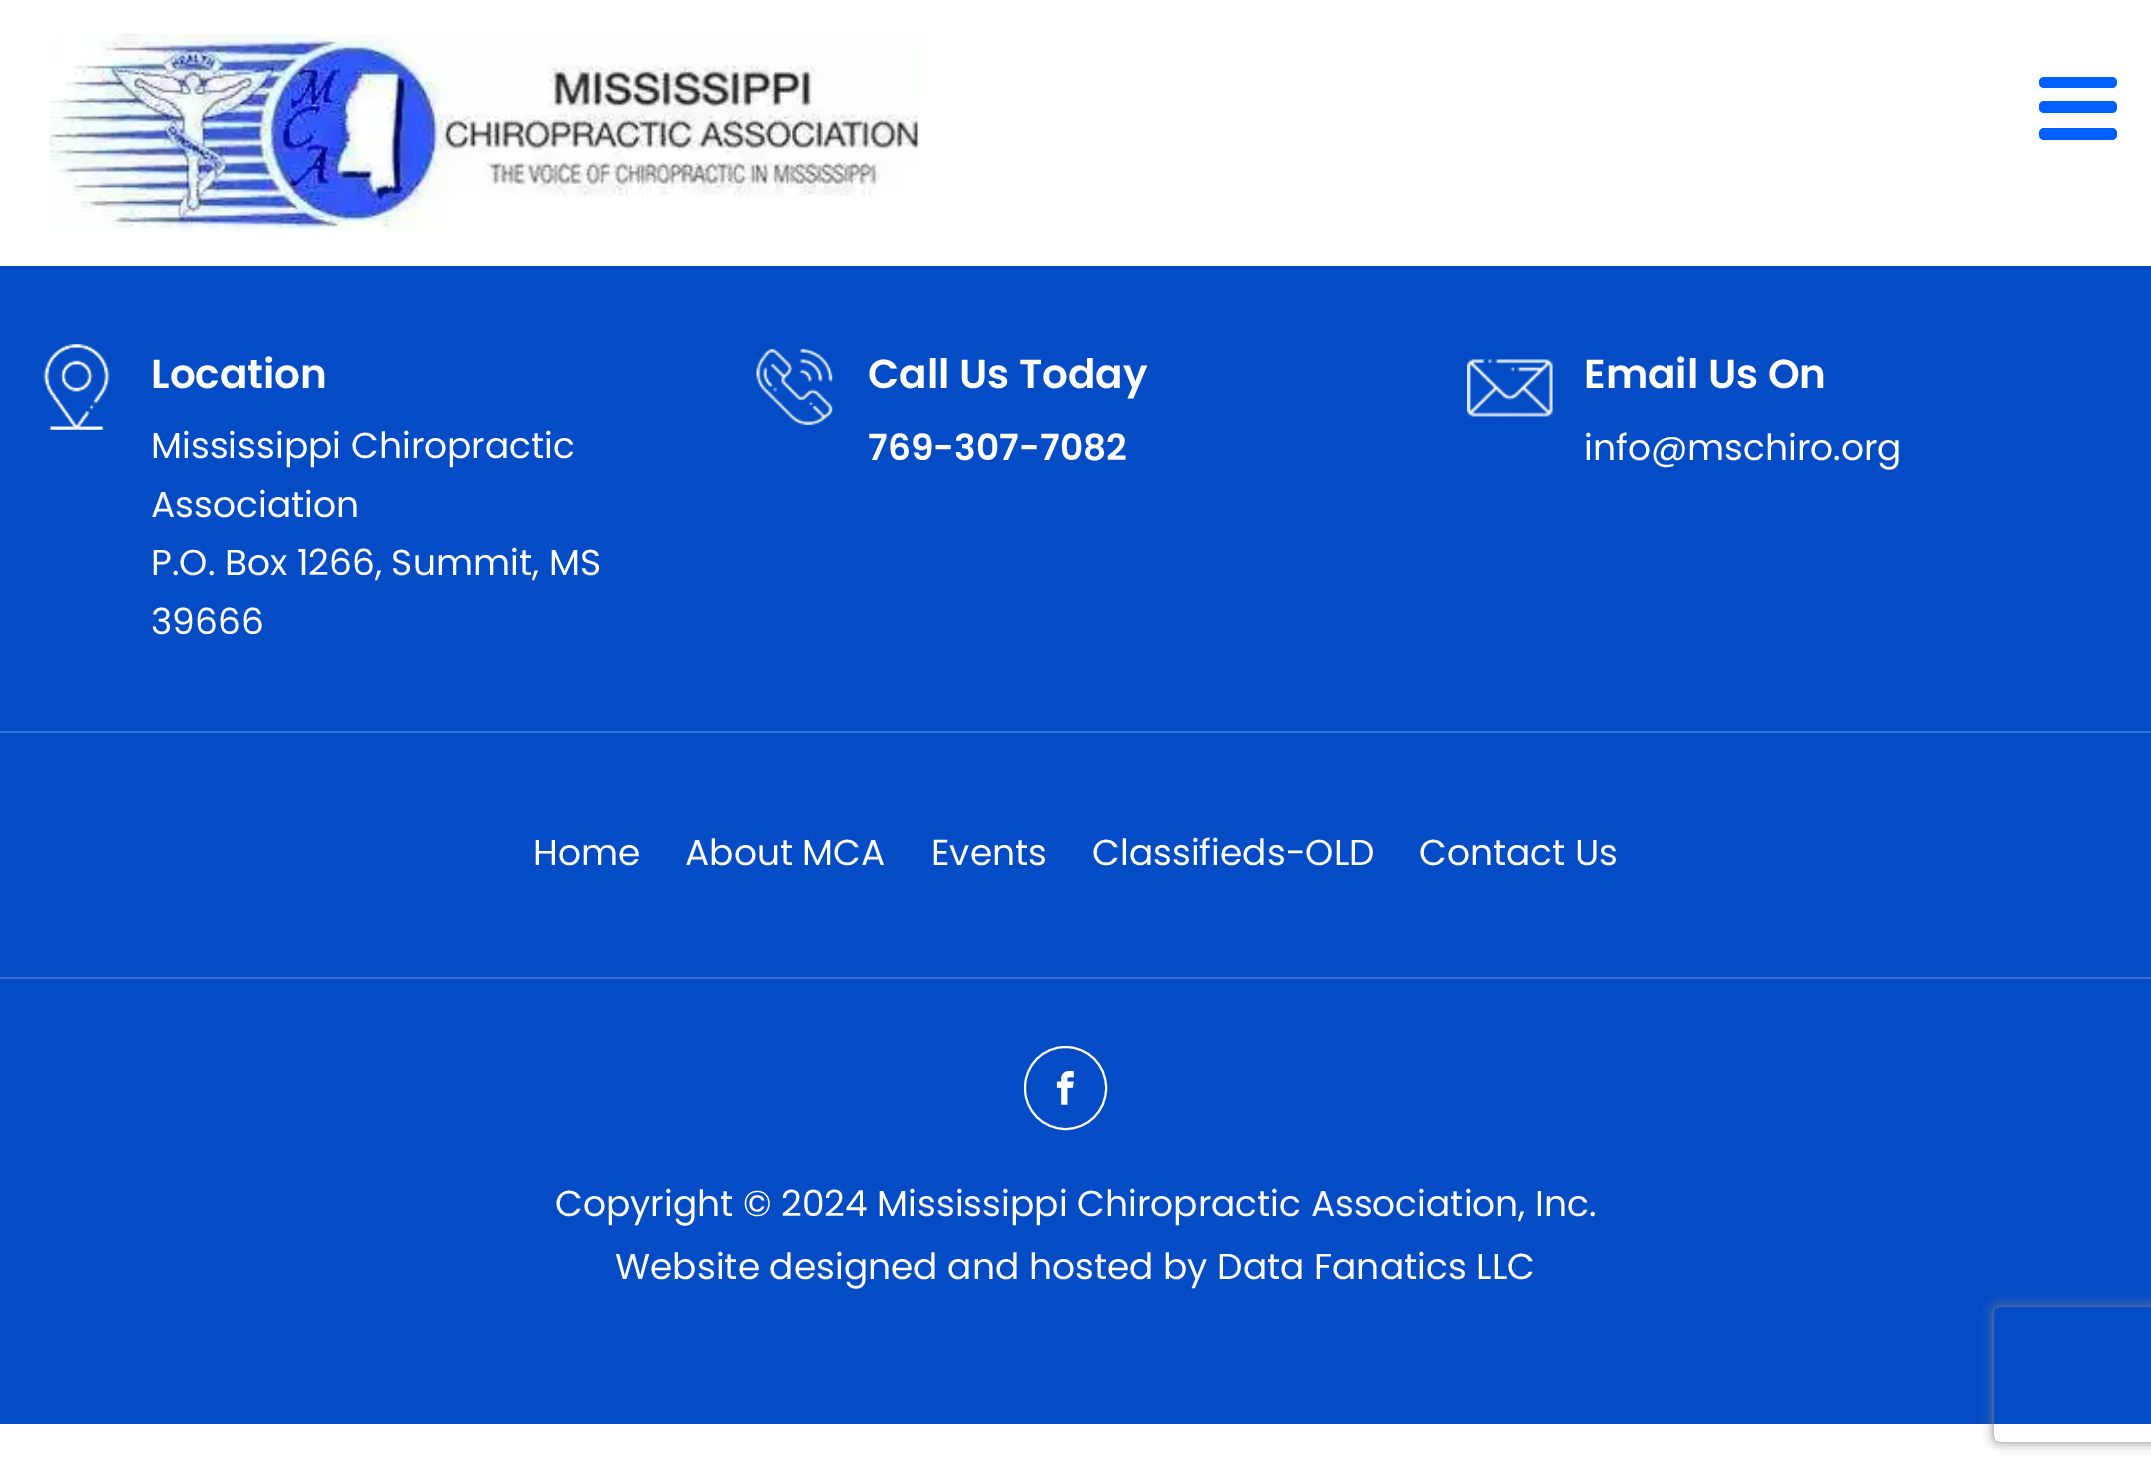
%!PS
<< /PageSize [2151 1473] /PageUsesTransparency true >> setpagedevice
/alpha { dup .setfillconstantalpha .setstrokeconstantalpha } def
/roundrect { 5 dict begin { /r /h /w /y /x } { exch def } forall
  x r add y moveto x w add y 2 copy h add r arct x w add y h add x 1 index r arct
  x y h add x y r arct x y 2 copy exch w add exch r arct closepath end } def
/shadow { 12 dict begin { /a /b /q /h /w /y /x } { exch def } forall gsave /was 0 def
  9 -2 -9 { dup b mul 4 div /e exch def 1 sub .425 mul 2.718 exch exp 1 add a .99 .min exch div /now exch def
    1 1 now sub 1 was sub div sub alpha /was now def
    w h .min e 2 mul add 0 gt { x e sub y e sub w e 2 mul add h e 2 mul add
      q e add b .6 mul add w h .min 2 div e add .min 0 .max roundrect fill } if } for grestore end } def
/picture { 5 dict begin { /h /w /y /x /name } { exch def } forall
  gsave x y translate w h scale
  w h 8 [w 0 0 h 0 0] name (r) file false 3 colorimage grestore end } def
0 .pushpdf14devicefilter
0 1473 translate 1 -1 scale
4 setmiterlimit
1 setgray
0 0 2151 1473 rectfill
(img1.rgb) 49 33 871 199 picture
0 0.373 1 setrgbcolor
2039 77 78 11 5 roundrect fill
2039 101 78 12 5 roundrect fill
2039 128 78 12 5 roundrect fill
0.016 0.298 0.773 setrgbcolor
0 266 2151 1158 rectfill
(img2.rgb) 43 344 67 86 picture
/Poppins-SemiBold [40.5 0 0 -40.5 0 0] selectfont
1 setgray
151 388 moveto (Location) show
/Poppins-Regular [36 0 0 -36 0 0] selectfont
151 458 moveto (Mississippi Chiropractic) show
151 517 moveto (Association) show
151 575 moveto (P.O. Box 1266, Summit, MS) show
151 634 moveto (39666) show
(img3.rgb) 756 349 77 77 picture
/Poppins-SemiBold [40.5 0 0 -40.5 0 0] selectfont
868 388 moveto (Call Us Today) show
/Poppins-SemiBold [36 0 0 -36 0 0] selectfont
868 460 moveto (769-307-7082) show
(img4.rgb) 1467 359 86 58 picture
/Poppins-SemiBold [40.5 0 0 -40.5 0 0] selectfont
1584 388 moveto (Email Us On) show
/Poppins-Regular [36 0 0 -36 0 0] selectfont
1584 460 moveto (info@mschiro.org) show
0.212 0.439 0.82 setrgbcolor
0 731 2151 2 rectfill
1 setgray
533 865 moveto (Home) show
685 865 moveto (About MCA) show
931 865 moveto (Events) show
1092 865 moveto (Classifieds-OLD) show
1419 865 moveto (Contact Us) show
0.212 0.439 0.82 setrgbcolor
0 977 2151 2 rectfill
1 setgray
2 setlinewidth
1025 1047 81 82 40.5 roundrect stroke
(img5.rgb) 1056 1071 18 34 picture
555 1216 moveto (Copyright © 2024 Mississippi Chiropractic Association, Inc.) show
615 1279 moveto (Website designed and hosted by Data Fanatics LLC) show
gsave
newpath 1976 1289 moveto 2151 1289 lineto 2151 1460 lineto 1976 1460 lineto closepath 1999 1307 moveto 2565 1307 lineto 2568 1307 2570 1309 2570 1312 curveto 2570 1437 lineto 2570 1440 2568 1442 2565 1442 curveto 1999 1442 lineto 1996 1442 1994 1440 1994 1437 curveto 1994 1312 lineto 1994 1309 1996 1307 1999 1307 curveto closepath eoclip newpath
0.502 setgray
1994 1307 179 135 5 5.5 1 shadow
grestore
.poppdf14devicefilter showpage
